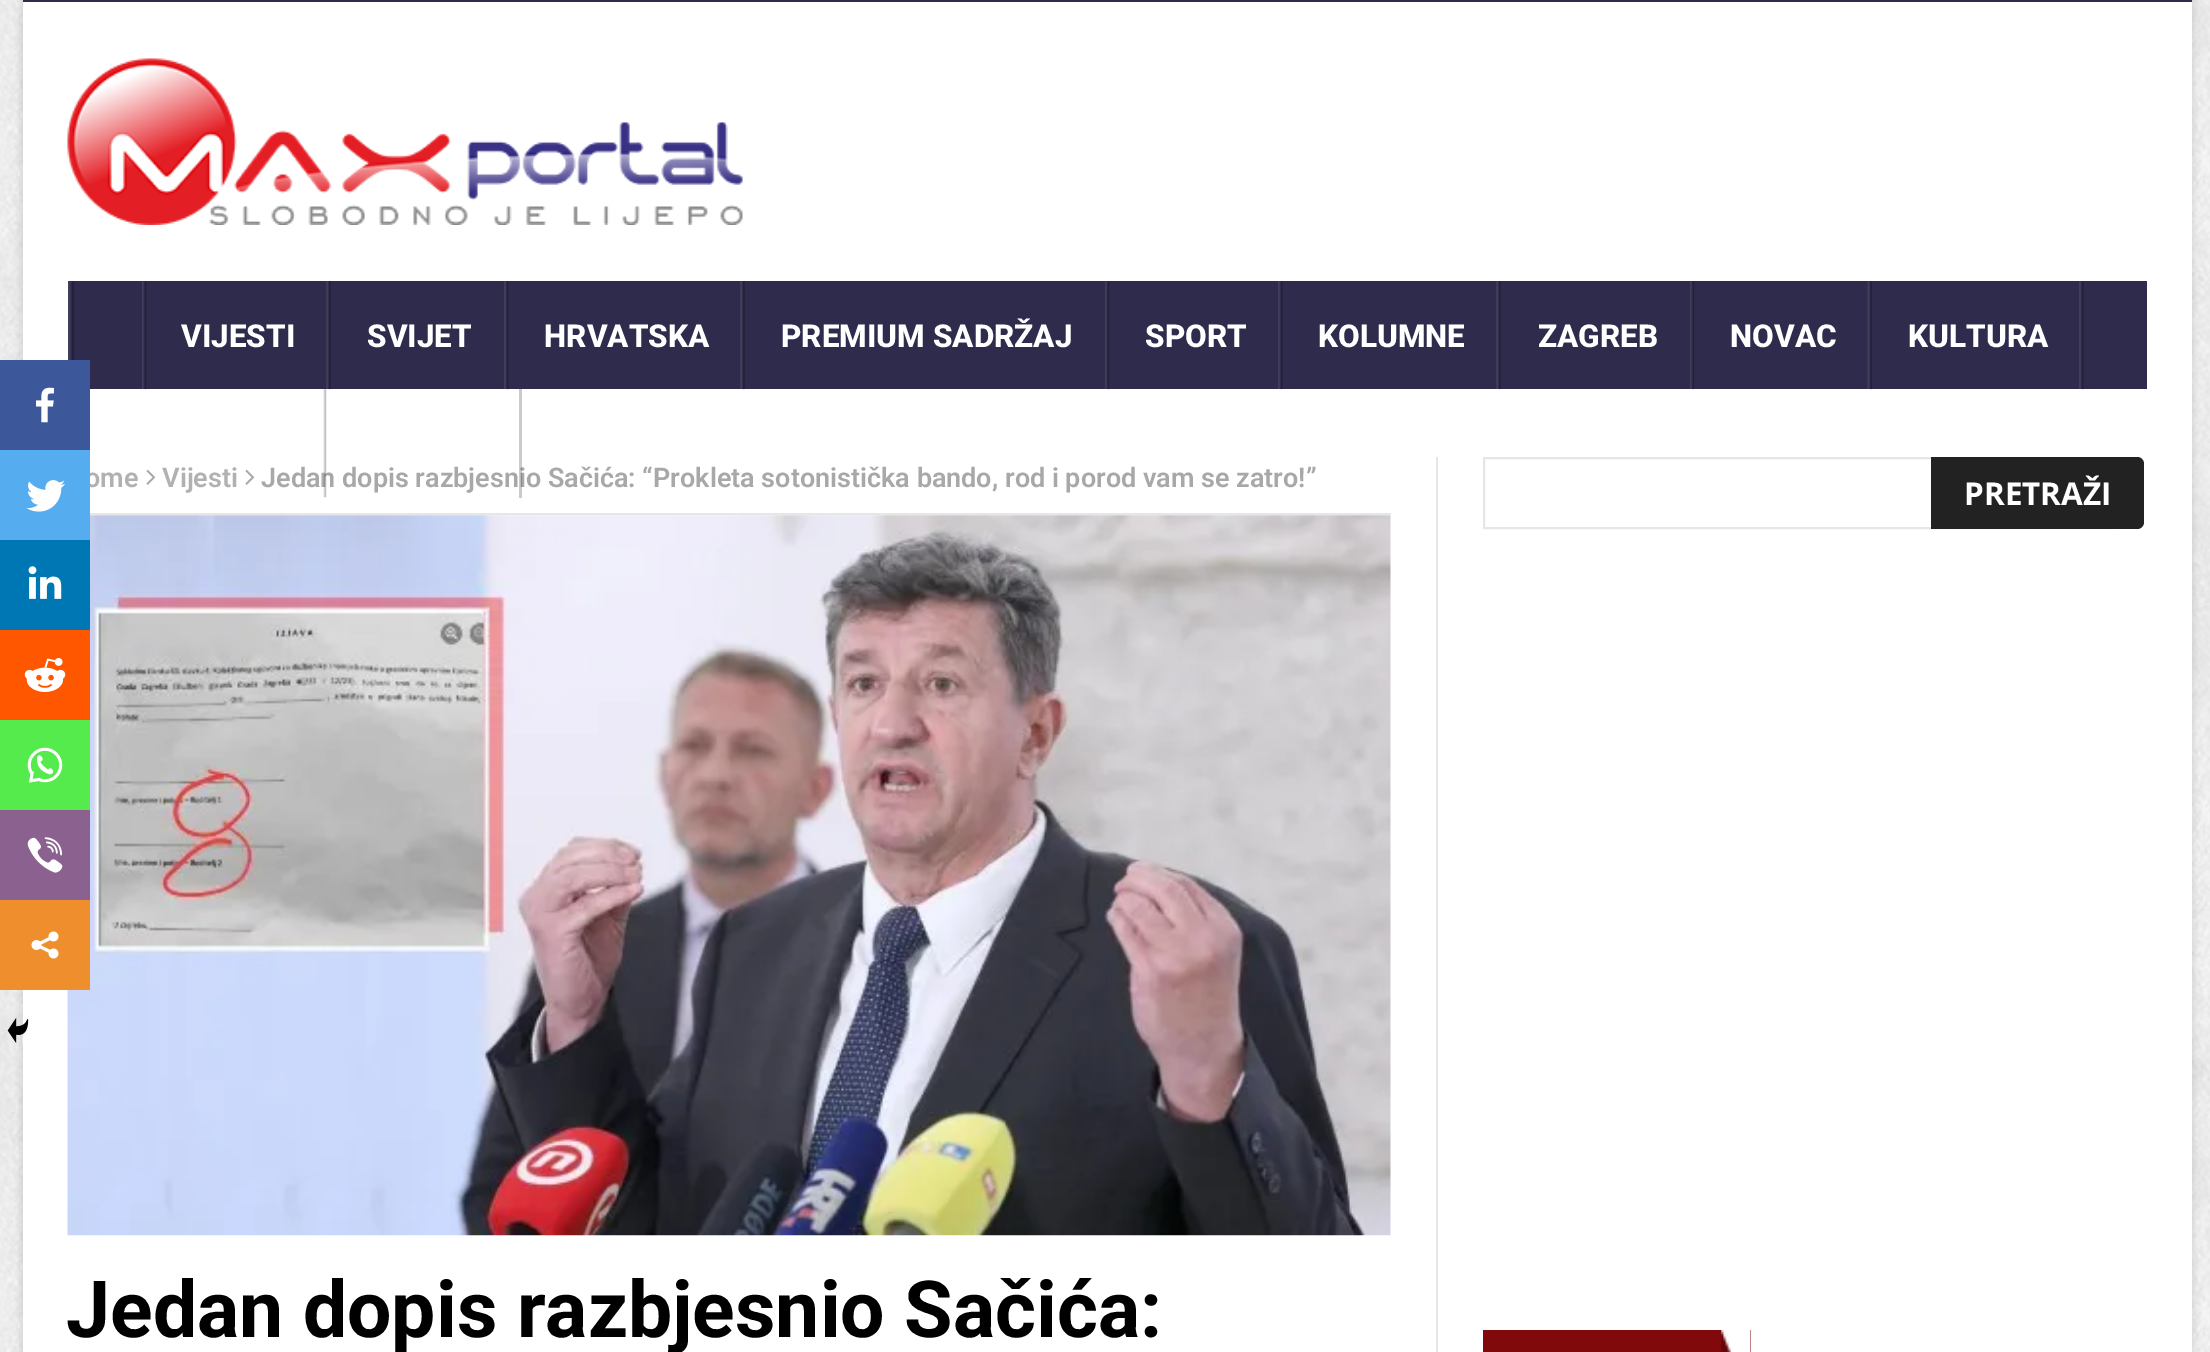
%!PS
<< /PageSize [2210 1352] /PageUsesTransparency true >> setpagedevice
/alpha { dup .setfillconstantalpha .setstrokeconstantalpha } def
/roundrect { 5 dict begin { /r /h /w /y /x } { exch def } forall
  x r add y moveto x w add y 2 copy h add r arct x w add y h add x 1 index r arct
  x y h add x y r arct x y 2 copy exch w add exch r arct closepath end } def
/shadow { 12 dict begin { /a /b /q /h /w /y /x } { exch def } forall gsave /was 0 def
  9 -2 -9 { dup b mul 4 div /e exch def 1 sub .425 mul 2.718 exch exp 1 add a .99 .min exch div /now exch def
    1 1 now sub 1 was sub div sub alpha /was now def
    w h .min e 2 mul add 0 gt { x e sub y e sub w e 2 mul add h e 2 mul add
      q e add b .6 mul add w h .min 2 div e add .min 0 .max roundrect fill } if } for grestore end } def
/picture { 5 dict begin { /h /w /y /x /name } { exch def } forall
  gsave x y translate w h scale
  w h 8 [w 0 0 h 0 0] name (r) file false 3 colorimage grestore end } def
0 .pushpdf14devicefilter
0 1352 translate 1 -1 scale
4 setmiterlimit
1 setgray
0 0 2210 1352 rectfill
(img1.rgb) 0 0 2210 1352 picture
0 setgray
20 -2 2174 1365 0 3.5 0.1 shadow
1 setgray
23 2 2169 1350 rectfill
0.18 0.169 0.302 setrgbcolor
23 0 2169 2 rectfill
(img2.rgb) 67 58 676 167 picture
68 281 2079 108 rectfill
(img3.rgb) 68 281 7 79 picture
(img4.rgb) 142 281 5 109 picture
(img5.rgb) 326 281 5 109 picture
/Roboto-ExtraBold [31.5 0 0 -31.5 0 0] selectfont
1 setgray
181 347 moveto (VIJESTI) show
(img6.rgb) 504 281 5 109 picture
367 347 moveto (SVIJET) show
(img5.rgb) 740 281 5 109 picture
544 347 moveto (HRVATSKA) show
(img4.rgb) 1105 281 5 109 picture
781 347 moveto (PREMIUM SADRŽAJ) show
(img6.rgb) 1278 281 5 109 picture
1145 347 moveto (SPORT) show
(img5.rgb) 1496 281 5 109 picture
1318 347 moveto (KOLUMNE) show
(img4.rgb) 1690 281 5 109 picture
1538 347 moveto (ZAGREB) show
(img7.rgb) 1867 281 5 109 picture
1730 347 moveto (NOVAC) show
(img6.rgb) 2079 281 5 109 picture
1908 347 moveto (KULTURA) show
/Roboto-SemiBold [27 0 0 -27 0 0] selectfont
0.659 setgray
261 487 moveto (Jedan dopis razbjesnio Sačića: “Prokleta sotonistička bando, rod i porod vam se zatro!”) show
(img8.rgb) 322 389 5 109 picture
0.22 alpha
0.075 setgray
519 389 3 109 rectfill
1 alpha
0.902 setgray
1436 457 2 895 rectfill
0.235 0.345 0.604 setrgbcolor
0 360 90 90 rectfill
(img9.rgb) 36 387 18 36 picture
0.694 setgray
85 487 moveto (ome) show
(img18.rgb) 67 515 1324 721 picture
0.333 0.675 0.933 setrgbcolor
0 450 90 90 rectfill
(img10.rgb) 26 480 39 32 picture
0 0.467 0.71 setrgbcolor
0 540 90 90 rectfill
(img11.rgb) 28 566 34 33 picture
1 0.341 0 setrgbcolor
0 630 90 90 rectfill
(img12.rgb) 24 658 42 34 picture
0.333 0.922 0.298 setrgbcolor
0 720 90 90 rectfill
(img13.rgb) 27 747 36 36 picture
0.545 0.384 0.561 setrgbcolor
0 810 90 90 rectfill
(img14.rgb) 27 837 36 36 picture
0.933 0.557 0.176 setrgbcolor
0 900 90 90 rectfill
(img15.rgb) 31 931 28 28 picture
(img16.rgb) 7 1017 22 27 picture
0.902 setgray
90 513 1301 2 rectfill
(img17.rgb) 146 469 10 16 picture
0.694 setgray
162 487 moveto (Vijesti) show
(img17.rgb) 245 469 10 16 picture
/Roboto-Bold [78.75 0 0 -78.75 0 0] selectfont
0 setgray
66 1337 moveto (Jedan dopis razbjesnio Sačića:) show
0.902 setgray
2 setlinewidth
1484 458 628 70 rectstroke
0.133 setgray
newpath 1931 457 moveto 2137 457 lineto 2141 457 2144 460 2144 464 curveto 2144 522 lineto 2144 526 2141 529 2137 529 curveto 1931 529 lineto closepath fill
/OpenSans-Bold [31.5 0 0 -31.5 0 0] selectfont
1 setgray
1964 505 moveto (PRETRAŽI) show
0.502 0.035 0.043 setrgbcolor
1483 1330 268 22 rectfill
(img19.rgb) 1721 1330 30 22 picture
.poppdf14devicefilter showpage
